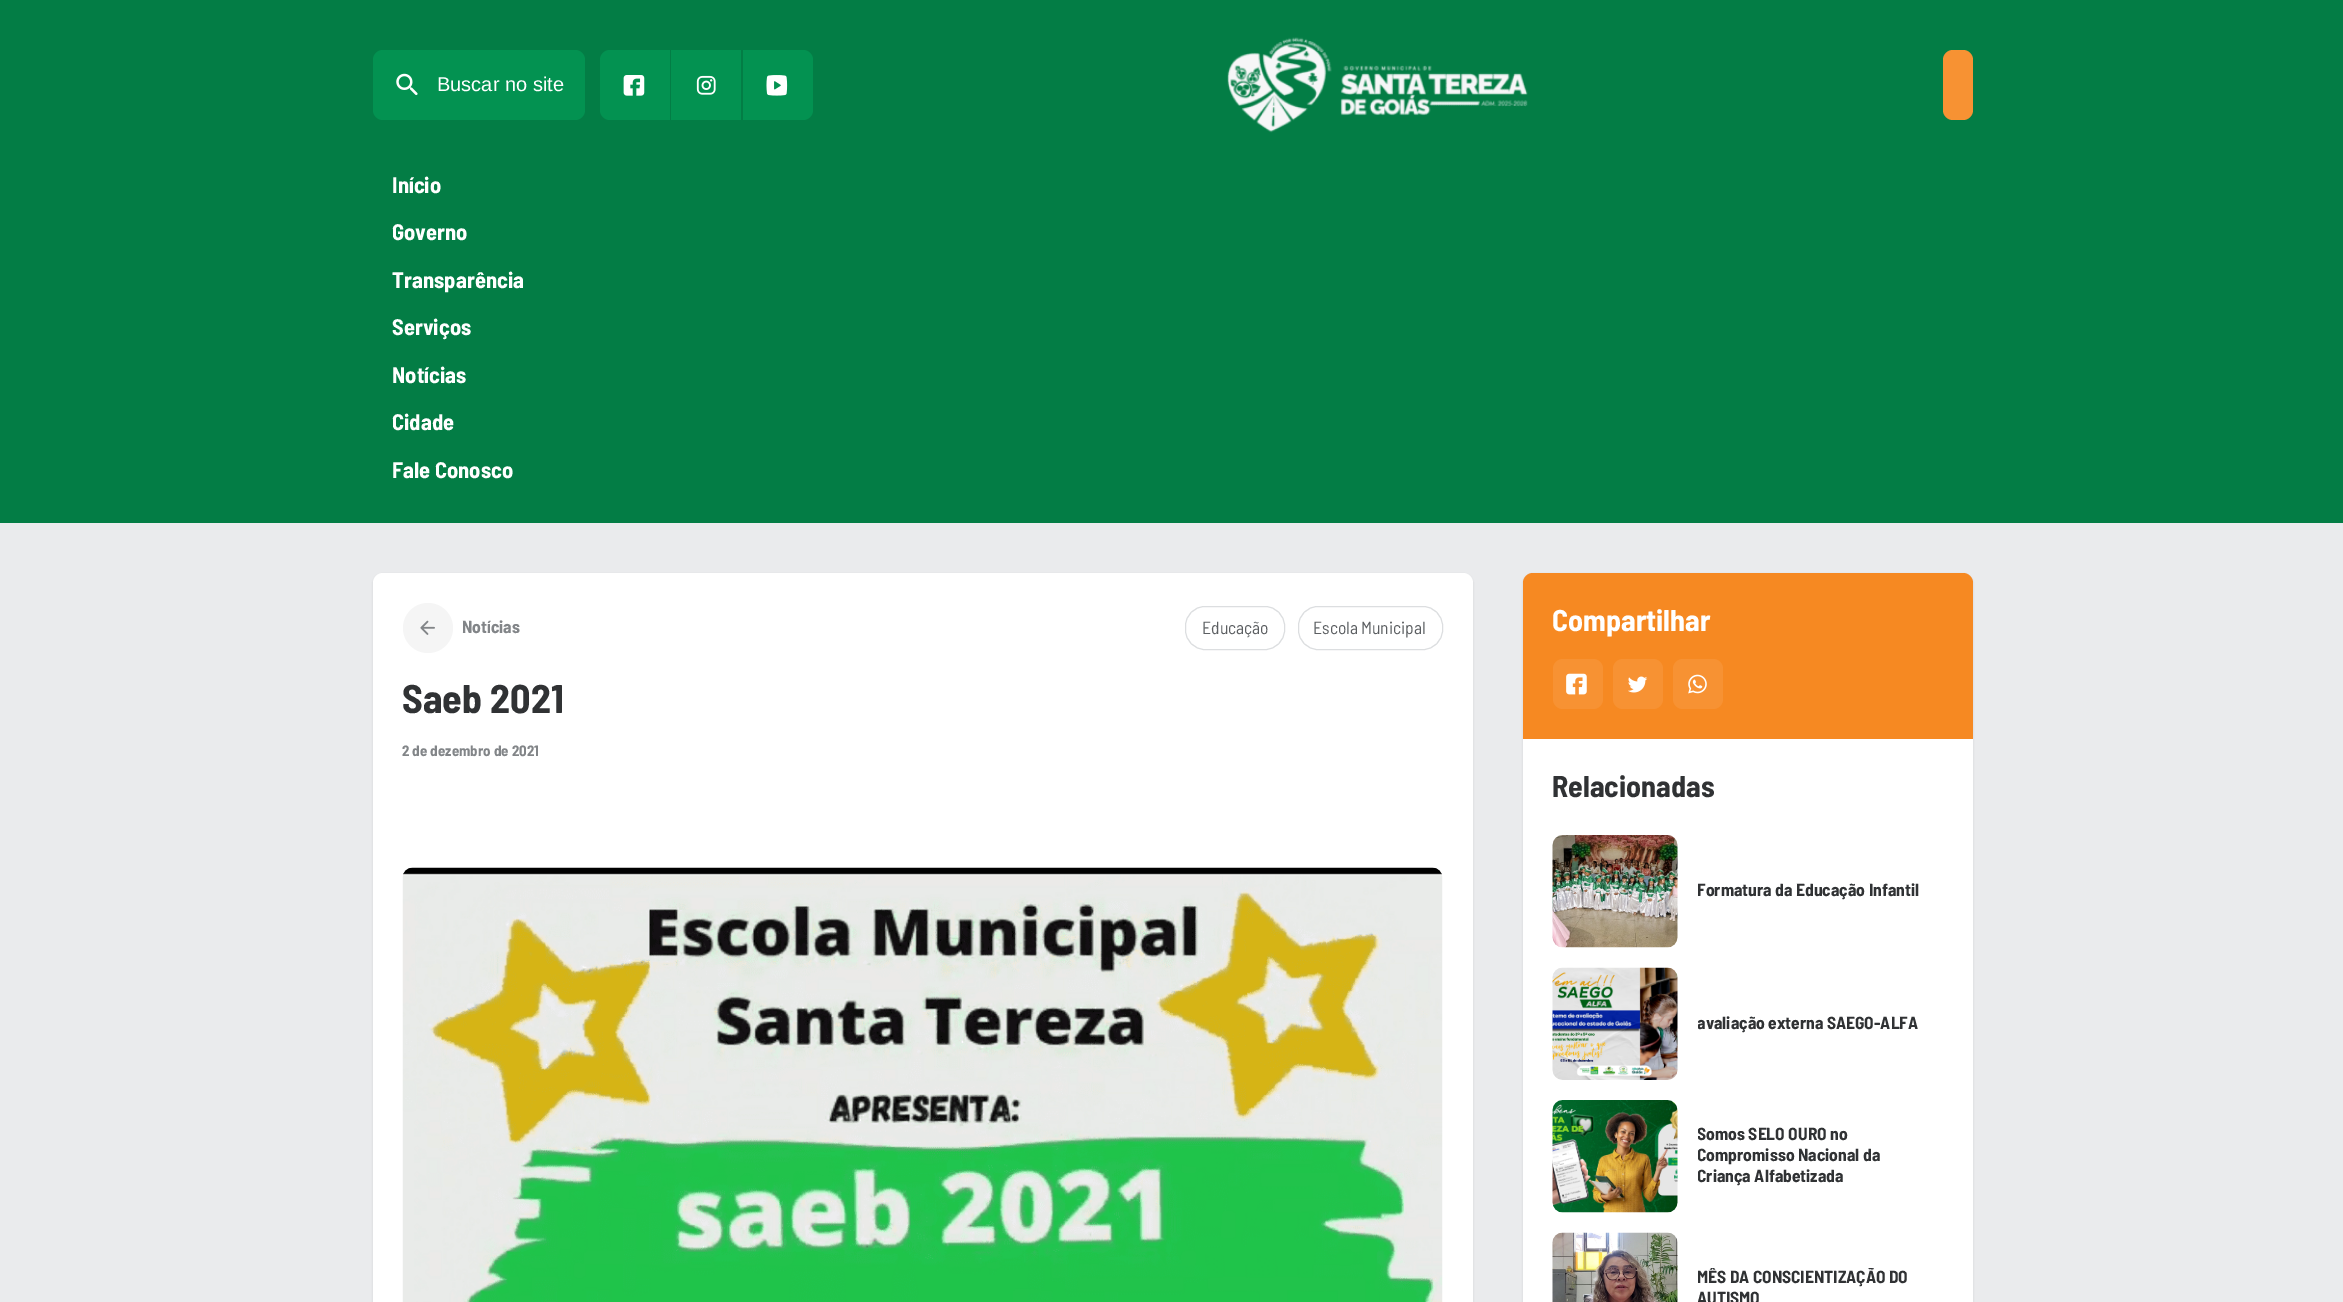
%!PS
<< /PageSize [2343 1302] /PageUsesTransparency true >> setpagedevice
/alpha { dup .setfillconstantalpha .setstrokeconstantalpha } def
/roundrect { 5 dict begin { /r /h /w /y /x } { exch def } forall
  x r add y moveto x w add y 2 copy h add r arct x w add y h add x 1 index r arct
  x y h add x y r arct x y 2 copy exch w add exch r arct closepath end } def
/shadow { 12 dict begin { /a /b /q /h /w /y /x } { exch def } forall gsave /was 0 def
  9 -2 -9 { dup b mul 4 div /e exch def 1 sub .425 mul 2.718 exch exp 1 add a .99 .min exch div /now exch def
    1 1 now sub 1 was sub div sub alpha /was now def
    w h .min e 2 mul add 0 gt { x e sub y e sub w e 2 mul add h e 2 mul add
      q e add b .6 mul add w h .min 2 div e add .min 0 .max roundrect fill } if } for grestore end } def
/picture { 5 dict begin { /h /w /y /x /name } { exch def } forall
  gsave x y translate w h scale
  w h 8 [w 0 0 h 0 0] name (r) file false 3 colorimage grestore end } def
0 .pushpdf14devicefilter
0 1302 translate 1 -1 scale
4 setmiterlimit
0.918 0.922 0.929 setrgbcolor
0 0 2343 1302 rectfill
0.012 0.49 0.271 setrgbcolor
0 0 2343 523 rectfill
0.012 0.573 0.318 setrgbcolor
373 50 212 70 10 roundrect fill
(img1.rgb) 396 73 22 23 picture
/LiberationSans-Regular [20 0 0 -20 0 0] selectfont
1 setgray
437 91 moveto (Buscar no site) show
0.012 0.573 0.318 setrgbcolor
newpath 610 50 moveto 670 50 lineto 670 120 lineto 610 120 lineto 604.5 120 600 115.5 600 110 curveto 600 60 lineto 600 54.5 604.5 50 610 50 curveto closepath fill
(img2.rgb) 623 75 22 21 picture
671 50 70 70 rectfill
(img3.rgb) 696 75 20 20 picture
newpath 743 50 moveto 803 50 lineto 808.5 50 813 54.5 813 60 curveto 813 110 lineto 813 115.5 808.5 120 803 120 curveto 743 120 lineto closepath fill
(img4.rgb) 766 75 22 21 picture
(img5.rgb) 1227 37 301 96 picture
0.969 0.573 0.2 setrgbcolor
1943 50 30 70 10 roundrect fill
/BarlowSemiCondensed-Bold [22.5 0 0 -22.5 0 0] selectfont
1 setgray
392 193 moveto (Início) show
392 240 moveto (Governo) show
392 288 moveto (Transparência) show
392 335 moveto (Serviços) show
392 383 moveto (Notícias) show
392 430 moveto (Cidade) show
392 478 moveto (Fale Conosco) show
0 setgray
373 574 1100 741 10 1 0.1 shadow
1 setgray
373 573 1100 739 10 roundrect fill
0.961 setgray
newpath 428 628 25 0 360 arc closepath fill
(img6.rgb) 420 620 15 15 picture
/BarlowSemiCondensed-Bold [17.5 0 0 -17.5 0 0] selectfont
0.51 0.522 0.533 setrgbcolor
462 633 moveto (Notícias) show
0.863 0.871 0.878 setrgbcolor
1185.5 606.5 99 43 19.5 roundrect stroke
/BarlowSemiCondensed-Regular [17.5 0 0 -17.5 0 0] selectfont
0.361 0.373 0.384 setrgbcolor
1202 634 moveto (Educação) show
0.863 0.871 0.878 setrgbcolor
1298.5 606.5 144 43 19.5 roundrect stroke
0.361 0.373 0.384 setrgbcolor
1313 634 moveto (Escola Municipal) show
/BarlowSemiCondensed-Bold [40 0 0 -40 0 0] selectfont
0.188 0.196 0.204 setrgbcolor
402 713 moveto (Saeb 2021) show
/BarlowSemiCondensed-Bold [15 0 0 -15 0 0] selectfont
0.51 0.522 0.533 setrgbcolor
402 756 moveto (2 de dezembro de 2021) show
(img7.rgb) 402 867 1041 435 picture
0 setgray
1523 574 450 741 10 1 0.1 shadow
0.965 0.537 0.133 setrgbcolor
newpath 1533 573 moveto 1963 573 lineto 1968.5 573 1973 577.5 1973 583 curveto 1973 739 lineto 1523 739 lineto 1523 583 lineto 1523 577.5 1527.5 573 1533 573 curveto closepath fill
/BarlowSemiCondensed-Bold [30 0 0 -30 0 0] selectfont
1 setgray
1552 631 moveto (Compartilhar) show
0.969 0.573 0.2 setrgbcolor
1553 659 50 50 10 roundrect fill
(img8.rgb) 1566 673 21 22 picture
1613 659 50 50 10 roundrect fill
(img9.rgb) 1628 676 20 17 picture
1673 659 50 50 10 roundrect fill
(img10.rgb) 1688 674 19 20 picture
1 setgray
1523 739 450 563 rectfill
0.188 0.196 0.204 setrgbcolor
1552 797 moveto (Relacionadas) show
(img11.rgb) 1552 835 126 113 picture
gsave
1698 880 221 21 rectclip
/BarlowSemiCondensed-Bold [17.5 0 0 -17.5 0 0] selectfont
1697 896 moveto (Formatura da Educação Infantil) show
grestore
(img12.rgb) 1552 967 126 113 picture
gsave
1698 1013 220 21 rectclip
/BarlowSemiCondensed-Bold [17.5 0 0 -17.5 0 0] selectfont
1697 1029 moveto (avaliação externa SAEGO-ALFA) show
grestore
(img13.rgb) 1552 1100 126 113 picture
gsave
1698 1124 225 64 rectclip
/BarlowSemiCondensed-Bold [17.5 0 0 -17.5 0 0] selectfont
1697 1140 moveto (Somos SELO OURO no) show
1697 1161 moveto (Compromisso Nacional da) show
1697 1182 moveto (Criança Alfabetizada) show
grestore
(img14.rgb) 1552 1232 126 70 picture
gsave
1698 1268 225 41 rectclip
/BarlowSemiCondensed-Bold [17.5 0 0 -17.5 0 0] selectfont
1697 1283 moveto (MÊS DA CONSCIENTIZAÇÃO DO) show
grestore
/BarlowSemiCondensed-Bold [17.5 0 0 -17.5 0 0] selectfont
1697 1304 moveto (AUTISMO) show
.poppdf14devicefilter showpage
